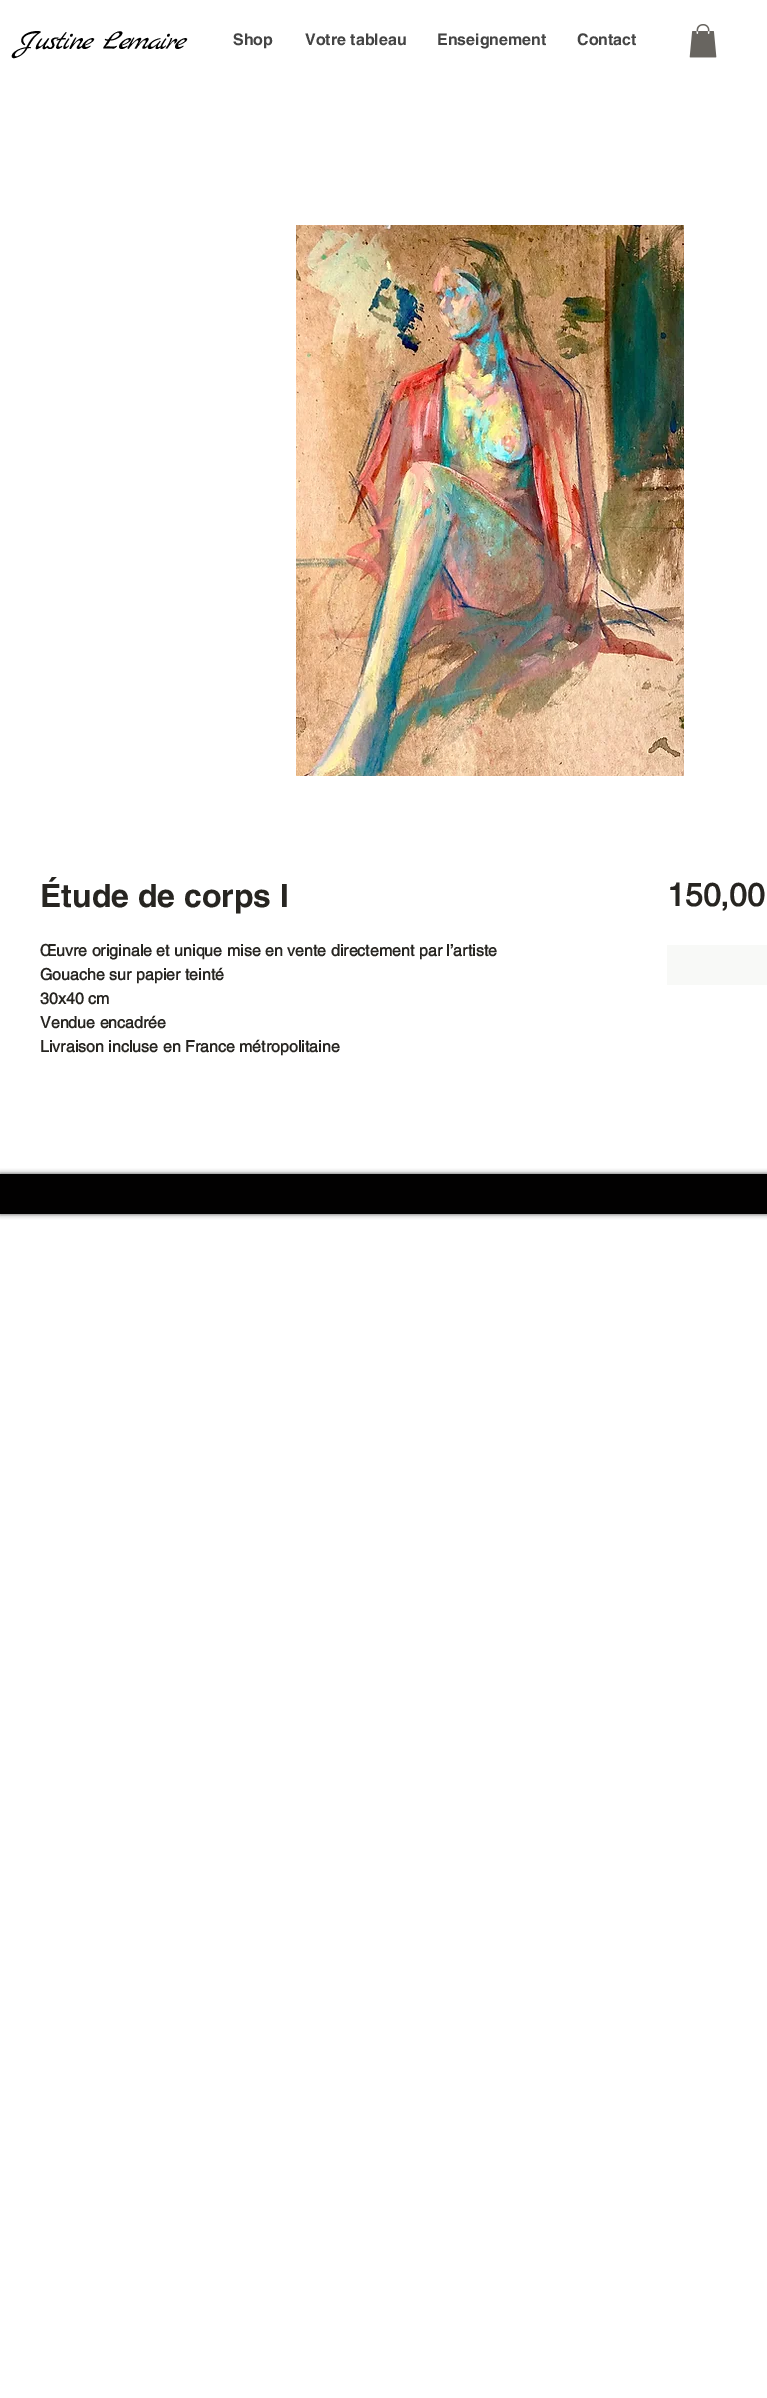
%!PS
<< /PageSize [767 2398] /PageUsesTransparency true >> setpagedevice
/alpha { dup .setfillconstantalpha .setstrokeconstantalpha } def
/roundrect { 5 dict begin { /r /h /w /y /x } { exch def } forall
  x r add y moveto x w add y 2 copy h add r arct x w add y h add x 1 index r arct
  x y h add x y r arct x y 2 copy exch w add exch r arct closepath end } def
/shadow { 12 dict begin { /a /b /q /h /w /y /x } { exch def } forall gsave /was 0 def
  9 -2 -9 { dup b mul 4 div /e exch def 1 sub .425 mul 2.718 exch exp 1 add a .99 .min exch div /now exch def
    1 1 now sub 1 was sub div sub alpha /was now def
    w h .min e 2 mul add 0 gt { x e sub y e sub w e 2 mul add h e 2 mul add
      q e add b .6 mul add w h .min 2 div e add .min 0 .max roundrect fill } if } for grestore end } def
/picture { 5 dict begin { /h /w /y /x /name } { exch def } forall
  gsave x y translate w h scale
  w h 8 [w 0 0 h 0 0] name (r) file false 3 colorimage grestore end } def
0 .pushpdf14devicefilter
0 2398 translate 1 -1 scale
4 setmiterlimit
1 setgray
0 0 767 2398 rectfill
/MarckScript-Italic [29 0 0 -29 0 0] selectfont
0 setgray
16 49 moveto -1.5 0 (Justine Lemaire) ashow
/helvetica-Bold [16 0 0 -16 0 0] selectfont
0.267 setgray
233 45 moveto (Shop) show
305 45 moveto (Votre tableau) show
437 45 moveto (Enseignement) show
577 45 moveto (Contact) show
(img1.rgb) 689 24 28 34 picture
(img2.rgb) 296 225 388 551 picture
/helvetica-Bold [32 0 0 -32 0 0] selectfont
0.153 0.145 0.129 setrgbcolor
40 907 moveto (Étude de corps I) show
/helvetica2-Bold [16 0 0 -16 0 0] selectfont
40 956 moveto (Œuvre originale et unique mise en vente directement par l’artiste) show
40 980 moveto (Gouache sur papier teinté) show
40 1004 moveto (30x40 cm) show
40 1028 moveto (Vendue encadrée) show
40 1052 moveto (Livraison incluse en France métropolitaine) show
/helvetica2-Bold [32 0 0 -32 0 0] selectfont
667 906 moveto (150,00) show
0.973 0.976 0.969 setrgbcolor
667 945 100 40 rectfill
0 setgray
0 1174 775 40 0 2.5 0.7 shadow
0.008 0.004 0.004 setrgbcolor
0 1174 767 40 rectfill
.poppdf14devicefilter showpage
